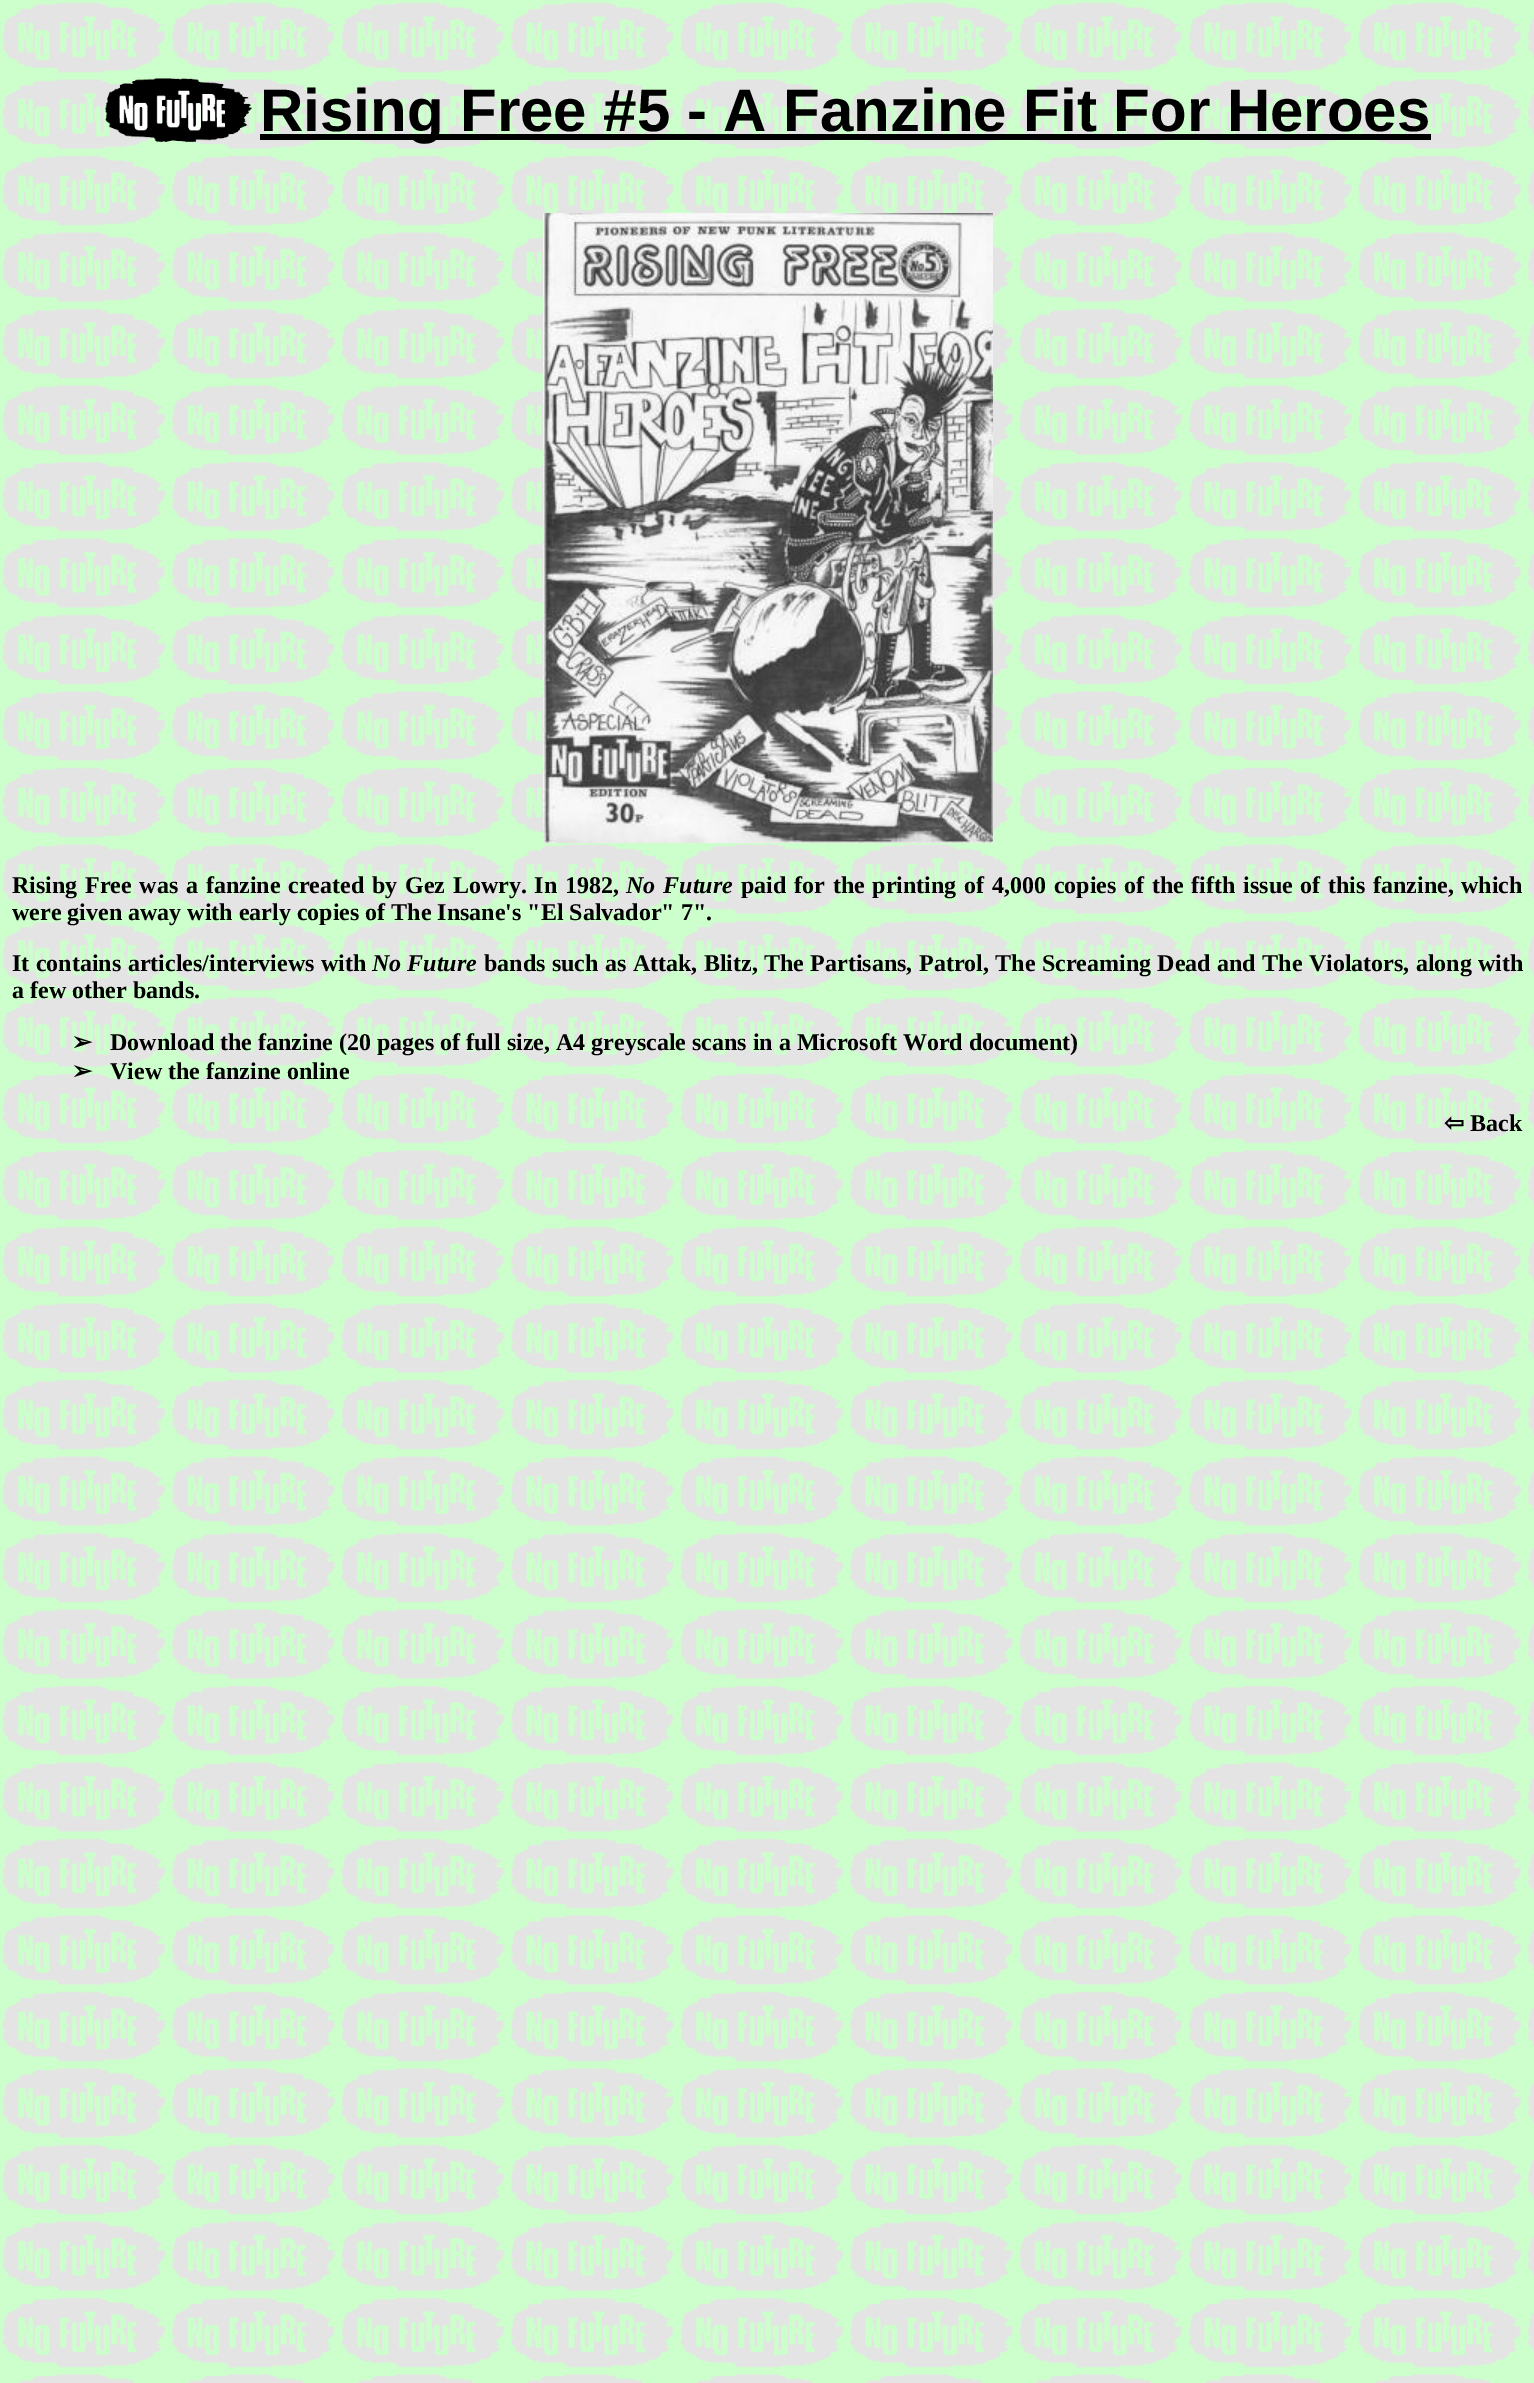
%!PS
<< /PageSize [1534 2383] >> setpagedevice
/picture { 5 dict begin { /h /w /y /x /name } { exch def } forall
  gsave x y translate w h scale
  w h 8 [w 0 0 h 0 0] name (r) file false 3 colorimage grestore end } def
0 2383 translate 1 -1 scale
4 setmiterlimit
1 setgray
0 0 1534 2383 rectfill
(img1.rgb) 0 0 1534 2383 picture
(img2.rgb) 105 78 147 64 picture
0 setgray
260 134 1171 6 rectfill
/LiberationSans-Bold [60 0 0 -60 0 0] selectfont
260 131 moveto (Rising Free #5 - A Fanzine Fit For Heroes) show
(img3.rgb) 543 213 450 630 picture
/LiberationSerif-Bold [24 0 0 -24 0 0] selectfont
12 893 moveto 1.75 0 32 (Rising Free was a fanzine created by Gez Lowry. In 1982,) widthshow
/LiberationSerif-BoldItalic [24 0 0 -24 0 0] selectfont
626 893 moveto 2 0 32 (No Future) widthshow
/LiberationSerif-Bold [24 0 0 -24 0 0] selectfont
741 893 moveto 1.75 0 32 (paid for the printing of 4,000 copies of the fifth issue of this fanzine,) widthshow
1461 893 moveto (which) show
12 920 moveto (were given away with early copies of The Insane's "El Salvador" 7".) show
12 971 moveto 0.5 0 32 (It contains articles/interviews with) widthshow
/LiberationSerif-BoldItalic [24 0 0 -24 0 0] selectfont
372 971 moveto (No Future) show
/LiberationSerif-Bold [24 0 0 -24 0 0] selectfont
484 971 moveto 0.4 0 32 (bands such as Attak, Blitz, The Partisans, Patrol, The Screaming Dead and The Violators, along with) widthshow
12 998 moveto (a few other bands.) show
/DejaVuSans-Bold [24 0 0 -24 0 0] selectfont
72 1050 moveto (➢) show
/LiberationSerif-Bold [24 0 0 -24 0 0] selectfont
110 1050 moveto (Download the fanzine \(20 pages of full size, A4 greyscale scans in a Microsoft Word document\)) show
/DejaVuSans-Bold [24 0 0 -24 0 0] selectfont
72 1079 moveto (➢) show
/LiberationSerif-Bold [24 0 0 -24 0 0] selectfont
110 1079 moveto (View the fanzine online) show
/DejaVuSans-Bold [24 0 0 -24 0 0] selectfont
1444 1131 moveto (⇦) show
/LiberationSerif-Bold [24 0 0 -24 0 0] selectfont
1470 1131 moveto (Back) show
showpage
